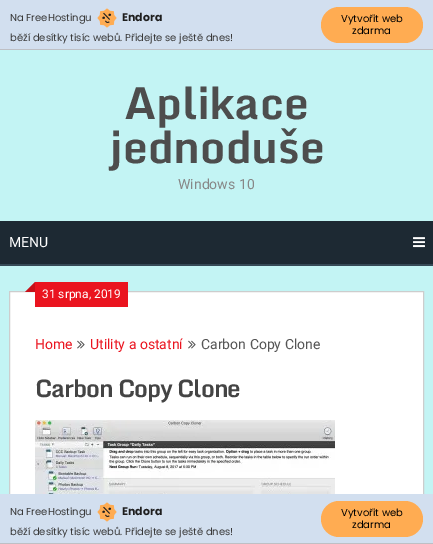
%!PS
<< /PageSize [433 544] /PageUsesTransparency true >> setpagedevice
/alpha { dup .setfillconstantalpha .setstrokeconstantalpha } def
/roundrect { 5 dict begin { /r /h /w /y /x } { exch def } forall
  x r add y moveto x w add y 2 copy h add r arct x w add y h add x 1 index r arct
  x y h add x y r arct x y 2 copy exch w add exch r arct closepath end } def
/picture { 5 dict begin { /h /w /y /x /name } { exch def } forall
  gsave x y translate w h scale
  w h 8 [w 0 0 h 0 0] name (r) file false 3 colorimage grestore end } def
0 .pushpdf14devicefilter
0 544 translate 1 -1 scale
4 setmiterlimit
0.765 0.957 0.957 setrgbcolor
0 0 433 544 rectfill
0.824 0.875 0.937 setrgbcolor
0 0 433 49 rectfill
0.745 0.749 0.769 setrgbcolor
0 49 433 1 rectfill
/Poppins-Regular [10 0 0 -10 0 0] selectfont
0.227 setgray
10 21 moveto (Na FreeHostingu) show
(img1.rgb) 97 8 20 20 picture
/Poppins-Bold [11 0 0 -11 0 0] selectfont
0.118 setgray
122 21 moveto (Endora) show
/Poppins-Regular [10 0 0 -10 0 0] selectfont
0.227 setgray
10 41 moveto (běží desítky tisíc webů. Přidejte se ještě dnes!) show
1 0.675 0.322 setrgbcolor
321 7 102 36 18 roundrect fill
0 setgray
341 22 moveto (Vytvořit web) show
352 34 moveto (zdarma) show
/Monda-Bold [44 0 0 -44 0 0] selectfont
0.302 setgray
124 119 moveto (Aplikace) show
109 163 moveto (jednoduše) show
/Roboto-Regular [14 0 0 -14 0 0] selectfont
0.529 setgray
178 189 moveto (Windows 10) show
0.212 0.286 0.337 setrgbcolor
0 264 433 2 rectfill
0.114 0.161 0.2 setrgbcolor
0 221 433 43 rectfill
1 setgray
9 247 moveto (MENU) show
(img2.rgb) 413 237 12 11 picture
10 292 413 202 rectfill
0.804 setgray
9.5 291.5 414 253 rectstroke
0.918 0.078 0.122 setrgbcolor
35 282 93 25 rectfill
newpath 35 292 moveto 25 292 lineto 35 282 lineto closepath fill
0.15 alpha
0 setgray
newpath 35 292 moveto 25 292 lineto 35 282 lineto closepath fill
/Roboto-Regular [12 0 0 -12 0 0] selectfont
1 alpha
1 setgray
42 298 moveto (31 srpna, 2019) show
/Roboto-Regular [14 0 0 -14 0 0] selectfont
0.918 0.078 0.122 setrgbcolor
35 349 moveto (Home) show
(img3.rgb) 77 340 8 9 picture
90 349 moveto (Utility a ostatní) show
(img3.rgb) 188 340 8 9 picture
0.333 setgray
201 349 moveto (Carbon Copy Clone) show
/Monda-Bold [24 0 0 -24 0 0] selectfont
0.267 setgray
35 397 moveto -1 0 (Carbon Copy Clone) ashow
(img4.rgb) 35 420 300 74 picture
0.824 0.875 0.937 setrgbcolor
0 494 433 49 rectfill
0.745 0.749 0.769 setrgbcolor
0 543 433 1 rectfill
/Poppins-Regular [10 0 0 -10 0 0] selectfont
0.227 setgray
10 515 moveto (Na FreeHostingu) show
(img1.rgb) 97 502 20 20 picture
/Poppins-Bold [11 0 0 -11 0 0] selectfont
0.118 setgray
122 515 moveto (Endora) show
/Poppins-Regular [10 0 0 -10 0 0] selectfont
0.227 setgray
10 535 moveto (běží desítky tisíc webů. Přidejte se ještě dnes!) show
1 0.675 0.322 setrgbcolor
321 501 102 36 18 roundrect fill
0 setgray
341 516 moveto (Vytvořit web) show
352 528 moveto (zdarma) show
.poppdf14devicefilter showpage
